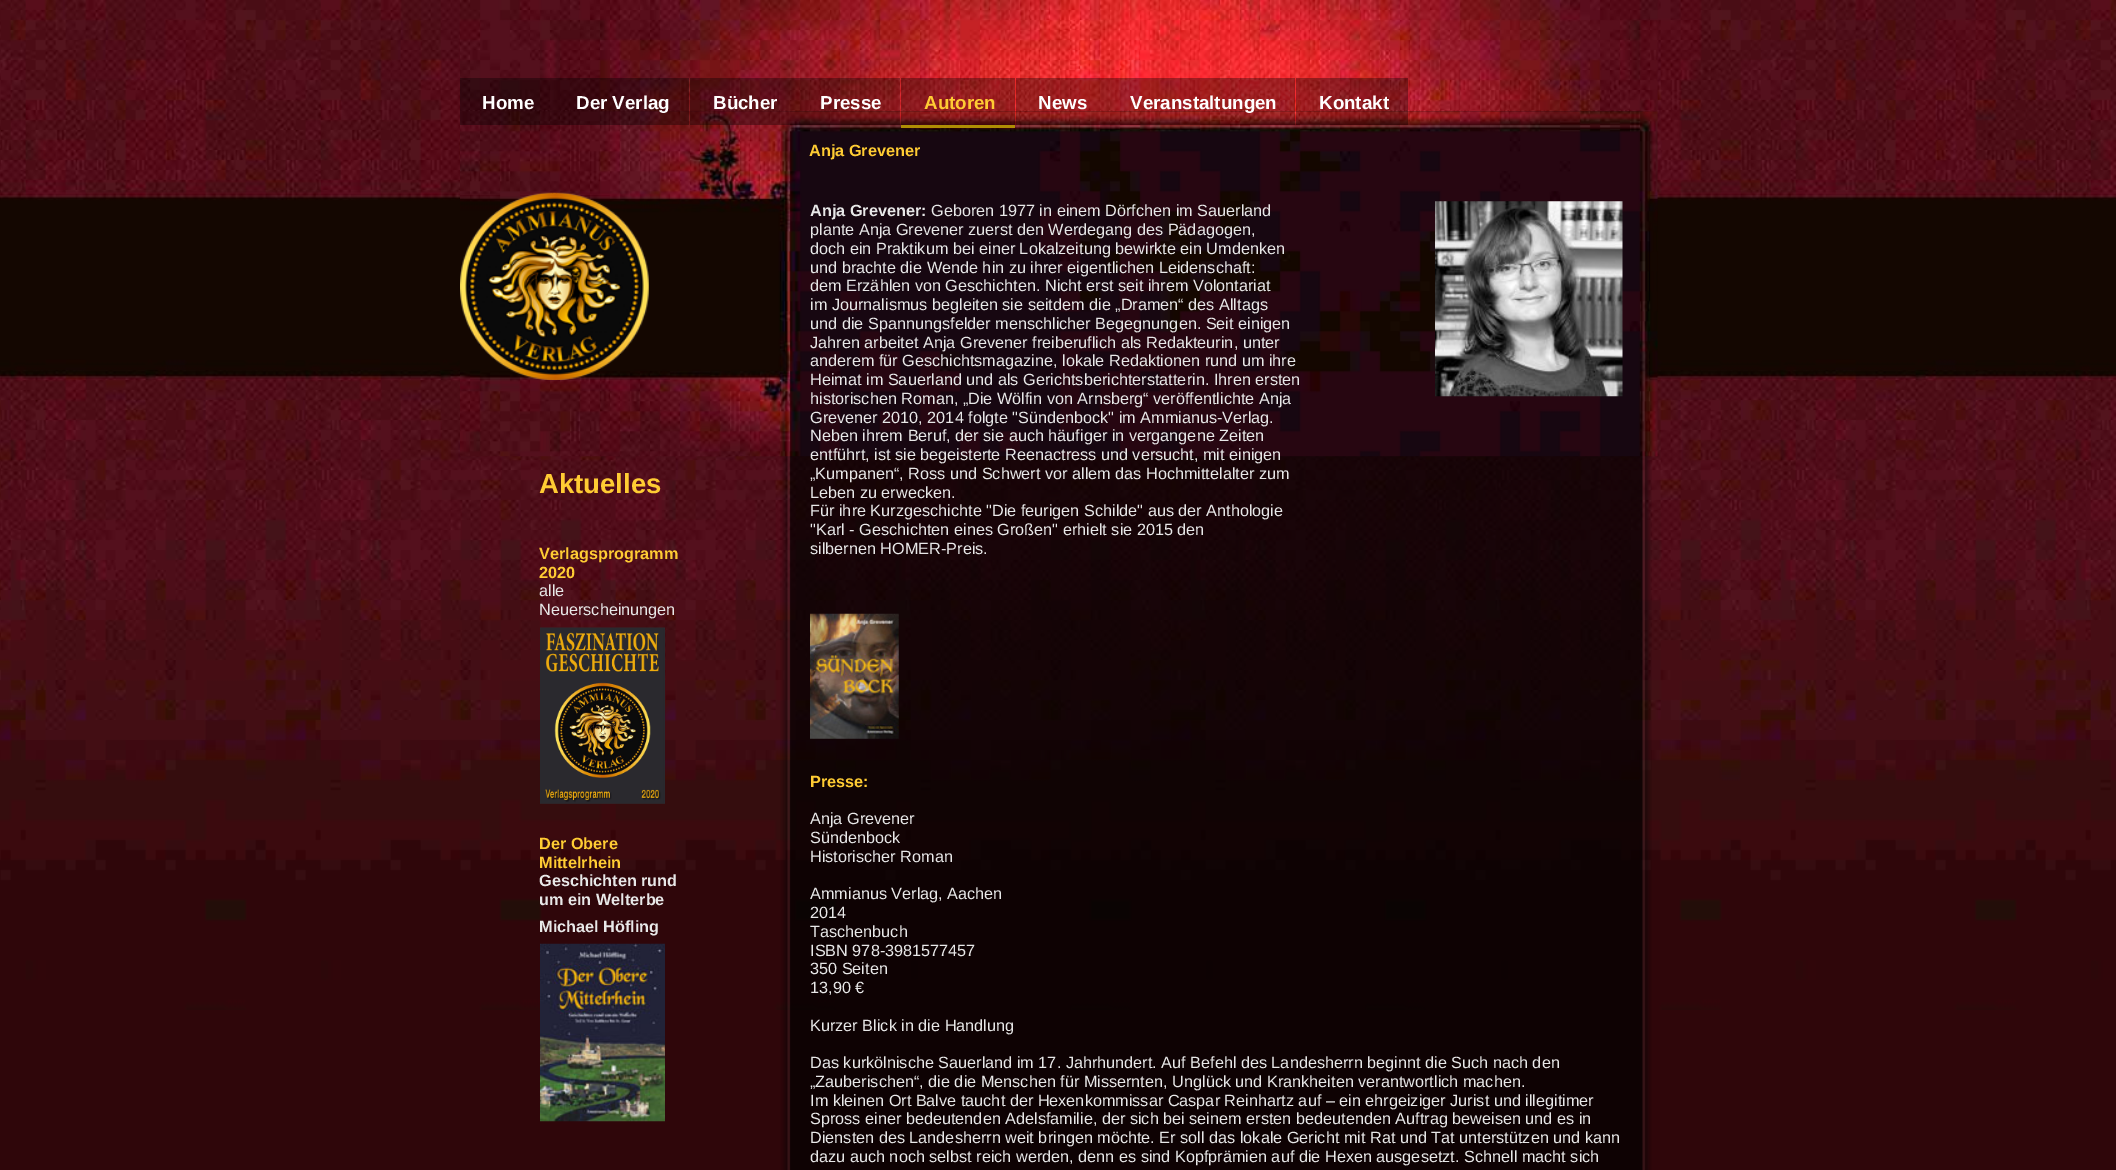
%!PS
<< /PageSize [2116 1170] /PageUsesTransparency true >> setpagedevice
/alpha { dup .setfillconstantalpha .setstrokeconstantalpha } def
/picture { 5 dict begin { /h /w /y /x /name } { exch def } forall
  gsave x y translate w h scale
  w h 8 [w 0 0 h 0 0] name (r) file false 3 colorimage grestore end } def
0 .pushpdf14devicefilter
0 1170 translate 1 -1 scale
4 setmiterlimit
0.184 0.024 0.039 setrgbcolor
0 0 2116 1170 rectfill
(img1.rgb) 0 0 2116 1010 picture
(img2.rgb) 780 111 872 1059 picture
(img4.rgb) 460 111 1198 346 picture
(img3.rgb) 460 0 1198 112 picture
0.35 alpha
0 setgray
460 78 93 47 rectfill
/LiberationSans-Bold [18.75 0 0 -18.75 0 0] selectfont
1 alpha
1 setgray
482 109 moveto (Home) show
0.35 alpha
0 setgray
553 78 136 47 rectfill
1 alpha
1 setgray
576 109 moveto (Der Verlag) show
0.35 alpha
0 setgray
690 78 107 47 rectfill
1 alpha
1 setgray
713 109 moveto (Bücher) show
0.35 alpha
0 setgray
797 78 103 47 rectfill
1 alpha
1 setgray
820 109 moveto (Presse) show
0.35 alpha
0 setgray
901 78 114 47 rectfill
1 alpha
0.69 0.557 0.016 setrgbcolor
901 125 114 3 rectfill
1 0.8 0.2 setrgbcolor
924 109 moveto (Autoren) show
0.35 alpha
0 setgray
1016 78 91 47 rectfill
1 alpha
1 setgray
1038 109 moveto (News) show
0.35 alpha
0 setgray
1107 78 188 47 rectfill
1 alpha
1 setgray
1130 109 moveto (Veranstaltungen) show
0.35 alpha
0 setgray
1296 78 112 47 rectfill
1 alpha
1 setgray
1319 109 moveto (Kontakt) show
(img5.rgb) 460 192 189 188 picture
/LiberationSans-Bold [27.5 0 0 -27.5 0 0] selectfont
1 0.8 0.2 setrgbcolor
539 493 moveto (Aktuelles) show
/LiberationSans-Bold [16.25 0 0 -16.25 0 0] selectfont
539 559 moveto (Verlagsprogramm) show
539 578 moveto (2020) show
/LiberationSans-Regular [16.25 0 0 -16.25 0 0] selectfont
0.91 setgray
539 596 moveto (alle) show
539 615 moveto (Neuerscheinungen) show
(img6.rgb) 540 627 125 177 picture
/LiberationSans-Bold [16.25 0 0 -16.25 0 0] selectfont
1 0.8 0.2 setrgbcolor
539 849 moveto (Der Obere) show
539 868 moveto (Mittelrhein) show
0.91 setgray
539 886 moveto (Geschichten rund) show
539 905 moveto (um ein Welterbe) show
539 932 moveto (Michael Höfling) show
(img7.rgb) 540 943 125 179 picture
1 0.8 0.2 setrgbcolor
809 156 moveto (Anja Grevener) show
0.91 setgray
810 216 moveto (Anja Grevener:) show
/LiberationSans-Regular [16.25 0 0 -16.25 0 0] selectfont
931 216 moveto (Geboren 1977 in einem Dörfchen im Sauerland) show
(img8.rgb) 1435 201 188 196 picture
810 235 moveto (plante Anja Grevener zuerst den Werdegang des Pädagogen,) show
810 254 moveto (doch ein Praktikum bei einer Lokalzeitung bewirkte ein Umdenken) show
810 273 moveto (und brachte die Wende hin zu ihrer eigentlichen Leidenschaft:) show
810 291 moveto (dem Erzählen von Geschichten. Nicht erst seit ihrem Volontariat) show
810 310 moveto (im Journalismus begleiten sie seitdem die „Dramen“ des Alltags) show
810 329 moveto (und die Spannungsfelder menschlicher Begegnungen. Seit einigen) show
810 348 moveto (Jahren arbeitet Anja Grevener freiberuflich als Redakteurin, unter) show
810 366 moveto (anderem für Geschichtsmagazine, lokale Redaktionen rund um ihre) show
810 385 moveto (Heimat im Sauerland und als Gerichtsberichterstatterin. Ihren ersten) show
810 404 moveto (historischen Roman, „Die Wölfin von Arnsberg“ veröffentlichte Anja) show
810 423 moveto (Grevener 2010, 2014 folgte "Sündenbock" im Ammianus-Verlag.) show
810 441 moveto (Neben ihrem Beruf, der sie auch häufiger in vergangene Zeiten) show
810 460 moveto (entführt, ist sie begeisterte Reenactress und versucht, mit einigen) show
810 479 moveto („Kumpanen“, Ross und Schwert vor allem das Hochmittelalter zum) show
810 498 moveto (Leben zu erwecken.) show
810 516 moveto (Für ihre Kurzgeschichte "Die feurigen Schilde" aus der Anthologie) show
810 535 moveto ("Karl - Geschichten eines Großen" erhielt sie 2015 den) show
810 554 moveto (silbernen HOMER-Preis.) show
(img9.rgb) 810 613 89 126 picture
/LiberationSans-Bold [16.25 0 0 -16.25 0 0] selectfont
1 0.8 0.2 setrgbcolor
810 787 moveto (Presse:) show
/LiberationSans-Regular [16.25 0 0 -16.25 0 0] selectfont
0.91 setgray
810 824 moveto (Anja Grevener) show
810 843 moveto (Sündenbock) show
810 862 moveto (Historischer Roman) show
810 899 moveto (Ammianus Verlag, Aachen) show
810 918 moveto (2014) show
810 937 moveto (Taschenbuch) show
810 956 moveto (ISBN 978-3981577457) show
810 974 moveto (350 Seiten) show
810 993 moveto (13,90 €) show
810 1031 moveto (Kurzer Blick in die Handlung) show
810 1068 moveto (Das kurkölnische Sauerland im 17. Jahrhundert. Auf Befehl des Landesherrn beginnt die Such nach den) show
810 1087 moveto („Zauberischen“, die die Menschen für Missernten, Unglück und Krankheiten verantwortlich machen.) show
810 1106 moveto (Im kleinen Ort Balve taucht der Hexenkommissar Caspar Reinhartz auf – ein ehrgeiziger Jurist und illegitimer) show
810 1124 moveto (Spross einer bedeutenden Adelsfamilie, der sich bei seinem ersten bedeutenden Auftrag beweisen und es in) show
810 1143 moveto (Diensten des Landesherrn weit bringen möchte. Er soll das lokale Gericht mit Rat und Tat unterstützen und kann) show
810 1162 moveto (dazu auch noch selbst reich werden, denn es sind Kopfprämien auf die Hexen ausgesetzt. Schnell macht sich) show
.poppdf14devicefilter showpage
